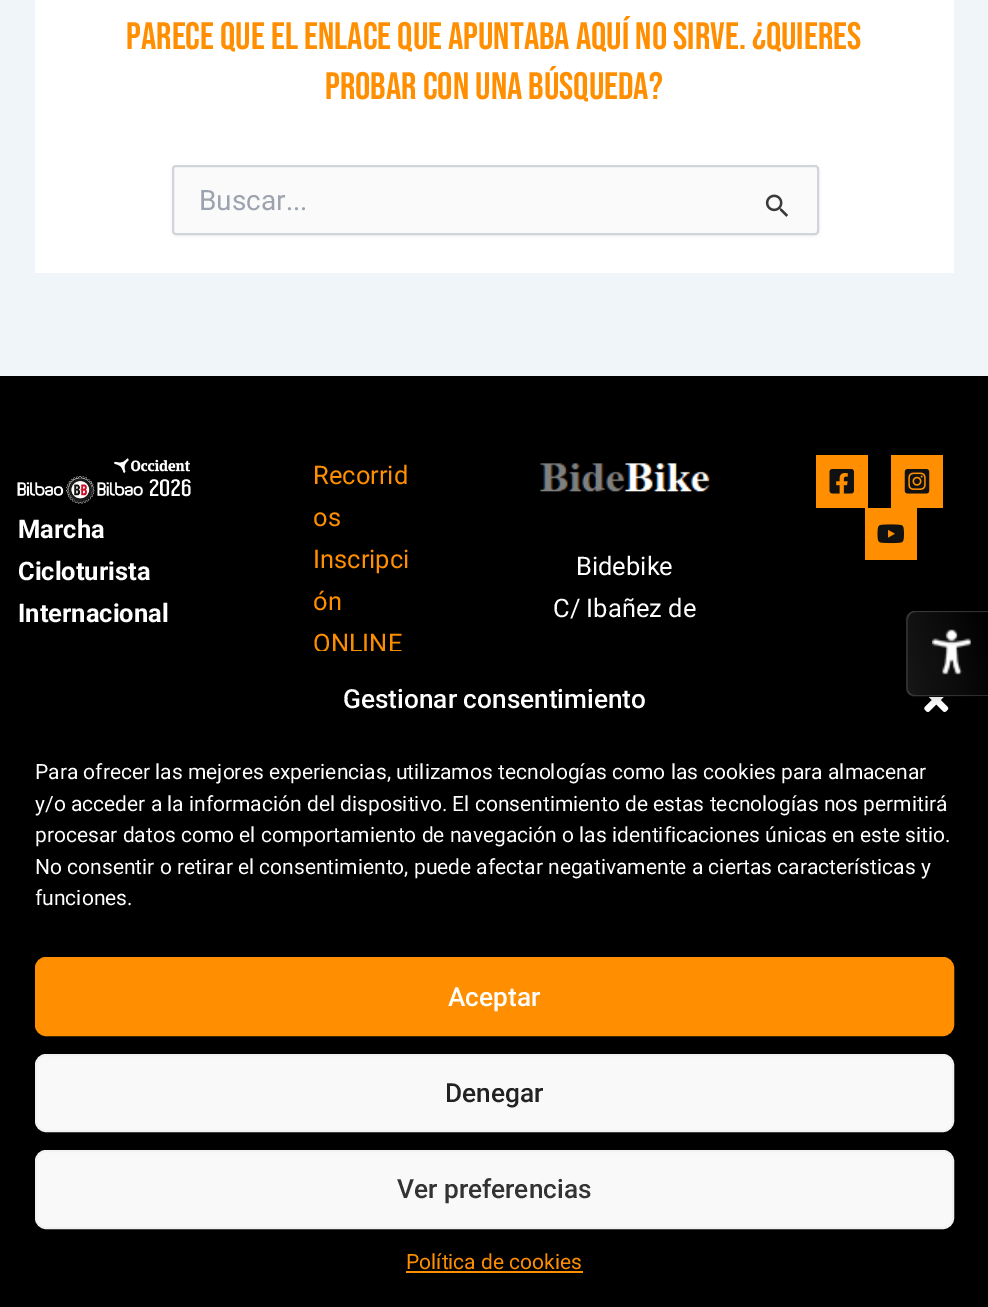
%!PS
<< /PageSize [988 1307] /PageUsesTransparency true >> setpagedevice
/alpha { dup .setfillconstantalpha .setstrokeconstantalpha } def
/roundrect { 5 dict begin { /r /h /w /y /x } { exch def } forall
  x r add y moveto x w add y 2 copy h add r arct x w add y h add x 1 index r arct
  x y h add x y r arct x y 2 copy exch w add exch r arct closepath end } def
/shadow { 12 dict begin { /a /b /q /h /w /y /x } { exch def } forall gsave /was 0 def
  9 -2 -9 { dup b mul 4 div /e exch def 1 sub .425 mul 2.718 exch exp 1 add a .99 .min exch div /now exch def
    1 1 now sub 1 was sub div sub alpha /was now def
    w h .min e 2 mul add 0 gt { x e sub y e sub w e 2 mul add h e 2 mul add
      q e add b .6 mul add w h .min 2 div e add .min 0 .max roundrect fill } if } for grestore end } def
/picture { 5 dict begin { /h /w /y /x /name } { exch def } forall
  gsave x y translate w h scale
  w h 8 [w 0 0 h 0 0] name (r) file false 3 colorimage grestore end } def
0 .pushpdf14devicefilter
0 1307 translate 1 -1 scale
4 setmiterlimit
0.941 0.961 0.98 setrgbcolor
0 0 988 1307 rectfill
1 setgray
35 0 919 273 rectfill
/BebasNeue-Regular [38.25 0 0 -38.25 0 0] selectfont
1 0.561 0 setrgbcolor
126 49 moveto (Parece que el enlace que apuntaba aquí no sirve. ¿Quieres) show
325 99 moveto (probar con una búsqueda?) show
0 setgray
172 166 647 70 4 2 0.05 shadow
0.98 setgray
173 166 645 68 3 roundrect gsave fill grestore
0.82 0.835 0.859 setrgbcolor
2 setlinewidth
stroke
/Roboto-Regular [28 0 0 -28 0 0] selectfont
0.612 0.639 0.686 setrgbcolor
199 210 moveto (Buscar...) show
(img1.rgb) 765 194 23 23 picture
0 setgray
0 376 988 296 rectfill
(img2.rgb) 17 458 174 46 picture
/Roboto-Bold [25.5 0 0 -25.5 0 0] selectfont
1 setgray
18 538 moveto (Marcha) show
18 580 moveto (Cicloturista) show
18 622 moveto (Internacional) show
/Roboto-Regular [25.5 0 0 -25.5 0 0] selectfont
1 0.561 0 setrgbcolor
313 484 moveto (Recorrid) show
313 526 moveto (os) show
313 568 moveto (Inscripci) show
313 610 moveto (ón) show
313 652 moveto (ONLINE) show
(img3.rgb) 540 463 170 29 picture
1 setgray
576 575 moveto (Bidebike) show
553 617 moveto (C/ Ibañez de) show
1 0.561 0 setrgbcolor
816 455 52 53 rectfill
(img4.rgb) 829 469 25 25 picture
891 455 52 53 rectfill
(img5.rgb) 904 469 26 25 picture
865 508 52 52 rectfill
(img6.rgb) 877 524 27 20 picture
0 setgray
0 1286 988 21 rectfill
0 669 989 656 21 17.5 0.19 shadow
0 651 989 656 21 roundrect fill
(img8.rgb) 924 697 25 15 picture
912 614 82 86 9 4.5 0.14 shadow
gsave
newpath 916 611 moveto 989 611 lineto 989 697 lineto 916 697 lineto 911 697 907 693 907 688 curveto 907 620 lineto 907 615 911 611 916 611 curveto closepath clip newpath
gsave newpath 908 611 moveto 988 611 lineto 988 613 lineto 908 613 lineto closepath clip newpath
<< /ShadingType 2 /ColorSpace /DeviceRGB /Coords [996 559 900 584] /Extend [true true] /Function << /FunctionType 3 /Domain [0 1] /Functions [<< /FunctionType 2 /Domain [0 1] /C0 [0 0 0] /C1 [0 0 0] /N 1 >> << /FunctionType 2 /Domain [0 1] /C0 [0 0 0] /C1 [0.09 0.09 0.09] /N 1 >> << /FunctionType 2 /Domain [0 1] /C0 [0.09 0.09 0.09] /C1 [0.09 0.09 0.09] /N 1 >>] /Bounds [0.01 0.98] /Encode [0 1 0 1 0 1] >> >> shfill grestore
gsave newpath 907 613 moveto 908 613 lineto 908 695 lineto 907 695 lineto closepath clip newpath
<< /ShadingType 2 /ColorSpace /DeviceRGB /Coords [915 641 820 666] /Extend [true true] /Function << /FunctionType 3 /Domain [0 1] /Functions [<< /FunctionType 2 /Domain [0 1] /C0 [0 0 0] /C1 [0 0 0] /N 1 >> << /FunctionType 2 /Domain [0 1] /C0 [0 0 0] /C1 [0.09 0.09 0.09] /N 1 >> << /FunctionType 2 /Domain [0 1] /C0 [0.09 0.09 0.09] /C1 [0.09 0.09 0.09] /N 1 >>] /Bounds [0.01 0.98] /Encode [0 1 0 1 0 1] >> >> shfill grestore
gsave newpath 908 613 moveto 988 613 lineto 988 695 lineto 908 695 lineto closepath clip newpath
<< /ShadingType 2 /ColorSpace /DeviceRGB /Coords [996 641 900 666] /Extend [true true] /Function << /FunctionType 3 /Domain [0 1] /Functions [<< /FunctionType 2 /Domain [0 1] /C0 [0 0 0] /C1 [0 0 0] /N 1 >> << /FunctionType 2 /Domain [0 1] /C0 [0 0 0] /C1 [0.09 0.09 0.09] /N 1 >> << /FunctionType 2 /Domain [0 1] /C0 [0.09 0.09 0.09] /C1 [0.09 0.09 0.09] /N 1 >>] /Bounds [0.01 0.98] /Encode [0 1 0 1 0 1] >> >> shfill grestore
gsave newpath 908 695 moveto 988 695 lineto 988 697 lineto 908 697 lineto closepath clip newpath
<< /ShadingType 2 /ColorSpace /DeviceRGB /Coords [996 723 900 749] /Extend [true true] /Function << /FunctionType 3 /Domain [0 1] /Functions [<< /FunctionType 2 /Domain [0 1] /C0 [0 0 0] /C1 [0 0 0] /N 1 >> << /FunctionType 2 /Domain [0 1] /C0 [0 0 0] /C1 [0.09 0.09 0.09] /N 1 >> << /FunctionType 2 /Domain [0 1] /C0 [0.09 0.09 0.09] /C1 [0.09 0.09 0.09] /N 1 >>] /Bounds [0.01 0.98] /Encode [0 1 0 1 0 1] >> >> shfill grestore
grestore
0.5 alpha
0.349 setgray
newpath 915 611 moveto 988 611 lineto 988 696 lineto 915 696 lineto 910 696 906 693 906 688 curveto 906 620 lineto 906 615 910 611 915 611 curveto closepath 915 612 moveto 988 612 lineto 988 695 lineto 915 695 lineto 911 695 908 692 908 688 curveto 908 620 lineto 908 616 911 612 915 612 curveto closepath eofill
1 alpha
(img7.rgb) 932 629 39 46 picture
/Roboto-Medium [26.25 0 0 -26.25 0 0] selectfont
1 setgray
343 708 moveto (Gestionar consentimiento) show
/Roboto-Regular [21 0 0 -21 0 0] selectfont
35 779 moveto (Para ofrecer las mejores experiencias, utilizamos tecnologías como las cookies para almacenar) show
35 811 moveto (y/o acceder a la información del dispositivo. El consentimiento de estas tecnologías nos permitirá) show
35 842 moveto (procesar datos como el comportamiento de navegación o las identificaciones únicas en este sitio.) show
35 874 moveto (No consentir o retirar el consentimiento, puede afectar negativamente a ciertas características y) show
35 905 moveto (funciones.) show
1 0.561 0 setrgbcolor
36 958 917 77 10 roundrect gsave fill grestore
stroke
/Roboto-Medium [26.25 0 0 -26.25 0 0] selectfont
1 setgray
448 1006 moveto (Aceptar) show
0.976 setgray
36 1055 917 76 10 roundrect gsave fill grestore
0.949 setgray
stroke
0.133 setgray
445 1102 moveto (Denegar) show
0.976 setgray
36 1151 917 77 10 roundrect gsave fill grestore
0.949 setgray
stroke
0.2 setgray
397 1198 moveto (Ver preferencias) show
/Roboto-Regular [21 0 0 -21 0 0] selectfont
1 0.561 0 setrgbcolor
406 1269 moveto (Política de cookies) show
406 1271 177 2 rectfill
.poppdf14devicefilter showpage
